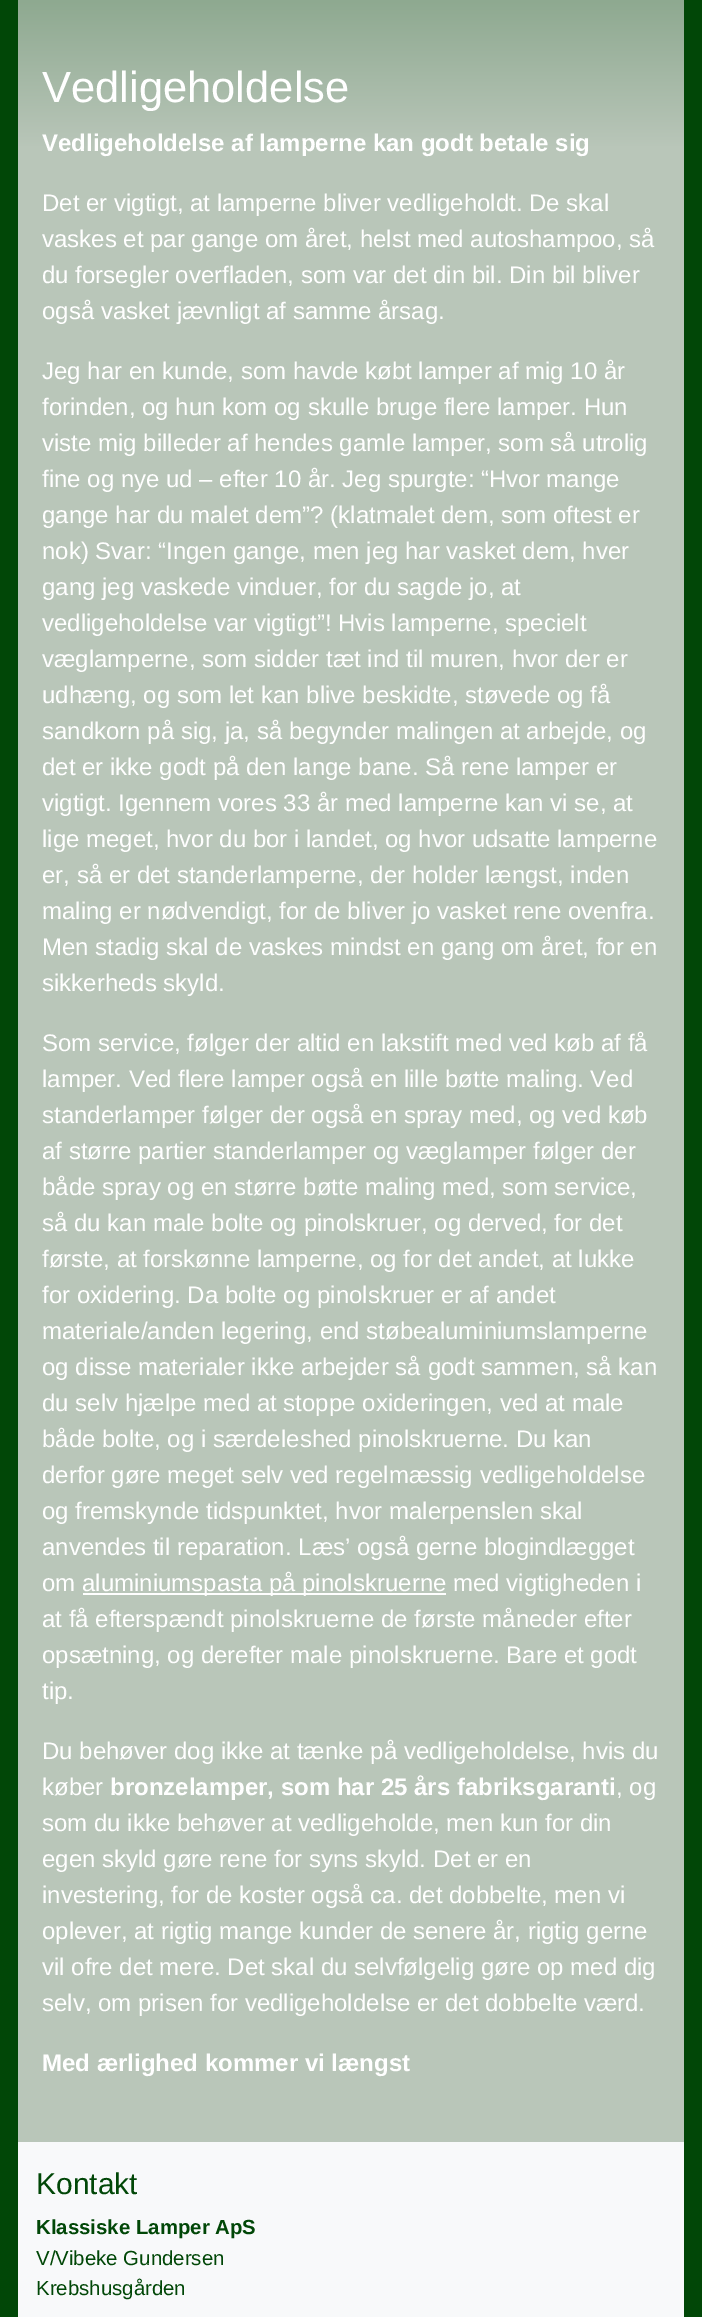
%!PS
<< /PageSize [702 2317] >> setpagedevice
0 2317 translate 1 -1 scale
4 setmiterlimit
0.004 0.278 0.027 setrgbcolor
0 0 702 2317 rectfill
0.725 0.776 0.725 setrgbcolor
18 147 666 1995 rectfill
gsave newpath 18 0 moveto 684 0 lineto 684 147 lineto 18 147 lineto closepath clip newpath
<< /ShadingType 2 /ColorSpace /DeviceRGB /Coords [351 -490 351 147] /Extend [true true] /Function << /FunctionType 2 /Domain [0 1] /C0 [0.004 0.278 0.027] /C1 [0.725 0.776 0.725] /N 1 >> >> shfill grestore
/LiberationSans-Regular [43.5 0 0 -43.5 0 0] selectfont
1 setgray
42 102 moveto (Vedligeholdelse) show
/LiberationSans-Bold [24 0 0 -24 0 0] selectfont
42 151 moveto (Vedligeholdelse af lamperne kan godt betale sig) show
/LiberationSans-Regular [24 0 0 -24 0 0] selectfont
42 211 moveto (Det er vigtigt, at lamperne bliver vedligeholdt. De skal) show
42 247 moveto (vaskes et par gange om året, helst med autoshampoo, så) show
42 283 moveto (du forsegler overfladen, som var det din bil. Din bil bliver) show
42 319 moveto (også vasket jævnligt af samme årsag.) show
42 379 moveto (Jeg har en kunde, som havde købt lamper af mig 10 år) show
42 415 moveto (forinden, og hun kom og skulle bruge flere lamper. Hun) show
42 451 moveto (viste mig billeder af hendes gamle lamper, som så utrolig) show
42 487 moveto (fine og nye ud – efter 10 år. Jeg spurgte: “Hvor mange) show
42 523 moveto (gange har du malet dem”? \(klatmalet dem, som oftest er) show
42 559 moveto (nok\) Svar: “Ingen gange, men jeg har vasket dem, hver) show
42 595 moveto (gang jeg vaskede vinduer, for du sagde jo, at) show
42 631 moveto (vedligeholdelse var vigtigt”! Hvis lamperne, specielt) show
42 667 moveto (væglamperne, som sidder tæt ind til muren, hvor der er) show
42 703 moveto (udhæng, og som let kan blive beskidte, støvede og få) show
42 739 moveto (sandkorn på sig, ja, så begynder malingen at arbejde, og) show
42 775 moveto (det er ikke godt på den lange bane. Så rene lamper er) show
42 811 moveto (vigtigt. Igennem vores 33 år med lamperne kan vi se, at) show
42 847 moveto (lige meget, hvor du bor i landet, og hvor udsatte lamperne) show
42 883 moveto (er, så er det standerlamperne, der holder længst, inden) show
42 919 moveto (maling er nødvendigt, for de bliver jo vasket rene ovenfra.) show
42 955 moveto (Men stadig skal de vaskes mindst en gang om året, for en) show
42 991 moveto (sikkerheds skyld.) show
42 1051 moveto (Som service, følger der altid en lakstift med ved køb af få) show
42 1087 moveto (lamper. Ved flere lamper også en lille bøtte maling. Ved) show
42 1123 moveto (standerlamper følger der også en spray med, og ved køb) show
42 1159 moveto (af større partier standerlamper og væglamper følger der) show
42 1195 moveto (både spray og en større bøtte maling med, som service,) show
42 1231 moveto (så du kan male bolte og pinolskruer, og derved, for det) show
42 1267 moveto (første, at forskønne lamperne, og for det andet, at lukke) show
42 1303 moveto (for oxidering. Da bolte og pinolskruer er af andet) show
42 1339 moveto (materiale/anden legering, end støbealuminiumslamperne) show
42 1375 moveto (og disse materialer ikke arbejder så godt sammen, så kan) show
42 1411 moveto (du selv hjælpe med at stoppe oxideringen, ved at male) show
42 1447 moveto (både bolte, og i særdeleshed pinolskruerne. Du kan) show
42 1483 moveto (derfor gøre meget selv ved regelmæssig vedligeholdelse) show
42 1519 moveto (og fremskynde tidspunktet, hvor malerpenslen skal) show
42 1555 moveto (anvendes til reparation. Læs’ også gerne blogindlægget) show
42 1591 moveto (om) show
83 1593 363 2 rectfill
82 1591 moveto (aluminiumspasta på pinolskruerne med vigtigheden i) show
42 1627 moveto (at få efterspændt pinolskruerne de første måneder efter) show
42 1663 moveto (opsætning, og derefter male pinolskruerne. Bare et godt) show
42 1699 moveto (tip.) show
42 1759 moveto (Du behøver dog ikke at tænke på vedligeholdelse, hvis du) show
42 1795 moveto (køber) show
/LiberationSans-Bold [24 0 0 -24 0 0] selectfont
110 1795 moveto (bronzelamper, som har 25 års fabriksgaranti) show
/LiberationSans-Regular [24 0 0 -24 0 0] selectfont
616 1795 moveto (, og) show
42 1831 moveto (som du ikke behøver at vedligeholde, men kun for din) show
42 1867 moveto (egen skyld gøre rene for syns skyld. Det er en) show
42 1903 moveto (investering, for de koster også ca. det dobbelte, men vi) show
42 1939 moveto (oplever, at rigtig mange kunder de senere år, rigtig gerne) show
42 1975 moveto (vil ofre det mere. Det skal du selvfølgelig gøre op med dig) show
42 2011 moveto (selv, om prisen for vedligeholdelse er det dobbelte værd.) show
/LiberationSans-Bold [24 0 0 -24 0 0] selectfont
42 2071 moveto (Med ærlighed kommer vi længst) show
0.973 0.976 0.98 setrgbcolor
18 2142 666 175 rectfill
/LiberationSans-Regular [30 0 0 -30 0 0] selectfont
0.004 0.278 0.027 setrgbcolor
36 2194 moveto (Kontakt) show
/LiberationSans-Bold [20.4 0 0 -20.4 0 0] selectfont
36 2234 moveto (Klassiske Lamper ApS) show
/LiberationSans-Regular [20.4 0 0 -20.4 0 0] selectfont
36 2265 moveto (V/Vibeke Gundersen) show
36 2295 moveto (Krebshusgården) show
showpage
